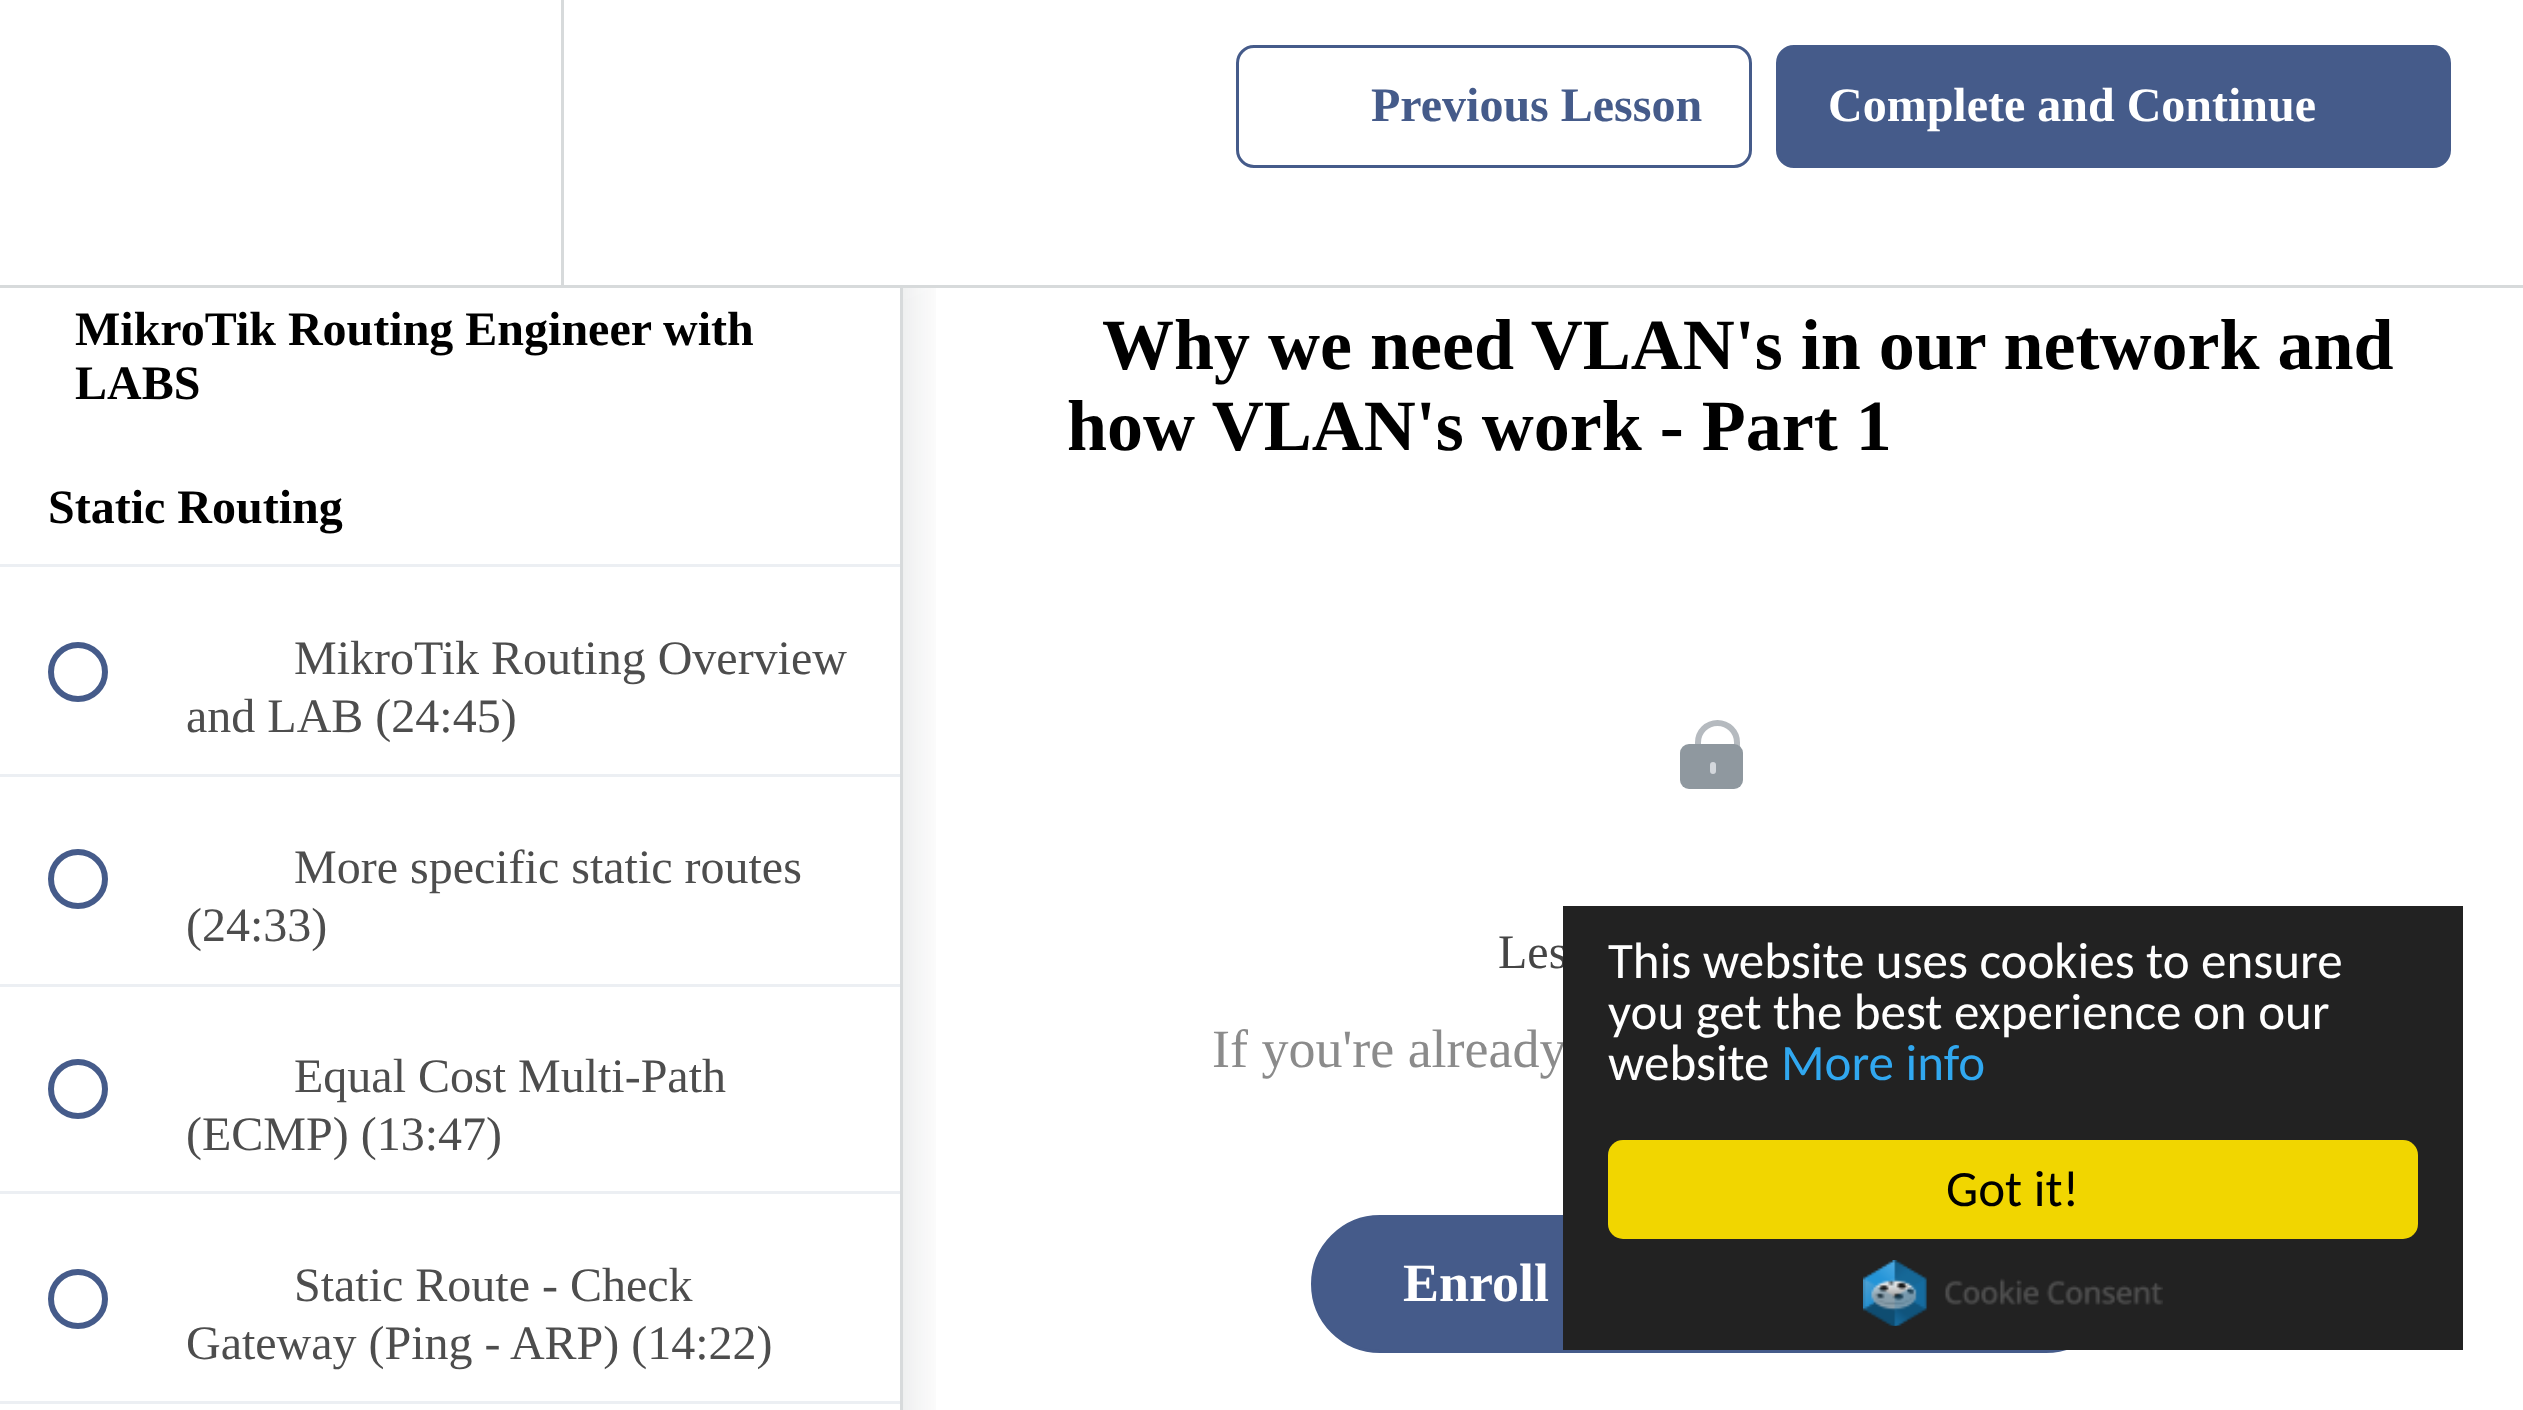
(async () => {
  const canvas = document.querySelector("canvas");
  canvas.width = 2523;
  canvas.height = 1410;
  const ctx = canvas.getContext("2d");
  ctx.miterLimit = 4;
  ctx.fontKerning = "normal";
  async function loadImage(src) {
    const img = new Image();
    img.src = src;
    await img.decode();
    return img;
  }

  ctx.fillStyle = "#ffffff";
  ctx.fillRect(0, 0, 2523, 1410);
  ctx.save();
  ctx.beginPath();
  ctx.rect(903, 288, 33, 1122);
  ctx.clip();
  ctx.fillStyle = "rgba(32, 39, 45, 0.15)";
  ctx.filter = "blur(30px)";
  ctx.beginPath();
  ctx.rect(0, 246, 903, 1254);
  ctx.fill();
  ctx.filter = "none";
  ctx.restore();
  for (const [x, y, w, h, color] of [
    [0, 203, 944, 82, "#ffffff"],
    [0, 285, 2523, 3, "#d7dadb"],
    [561, 0, 3, 285, "#d7dadb"],
  ]) {
    ctx.fillStyle = color;
    ctx.fillRect(x, y, w, h);
  }
  ctx.beginPath();
  ctx.roundRect(1237.5, 46.5, 513, 120, 16.5);
  ctx.strokeStyle = "#455b8a";
  ctx.lineWidth = 3;
  ctx.stroke();
  ctx.fillStyle = "#455b8a";
  ctx.beginPath();
  ctx.roundRect(1777.5, 46.5, 672, 120, 16.5);
  ctx.fill();
  ctx.stroke();
  for (const [x, y, w, h, color] of [
    [900, 288, 3, 1122, "#d7dadb"],
    [0, 564, 900, 3, "#eceff3"],
    [0, 774, 900, 3, "#eceff3"],
  ]) {
    ctx.fillStyle = color;
    ctx.fillRect(x, y, w, h);
  }
  ctx.beginPath();
  ctx.arc(78, 672, 27, 0, Math.PI * 2);
  ctx.lineWidth = 6;
  ctx.stroke();
  ctx.fillRect(0, 984, 900, 3);
  ctx.beginPath();
  ctx.arc(78, 879, 27, 0, Math.PI * 2);
  ctx.stroke();
  ctx.fillRect(0, 1191, 900, 3);
  ctx.beginPath();
  ctx.arc(78, 1089, 27, 0, Math.PI * 2);
  ctx.stroke();
  ctx.fillRect(0, 1401, 900, 3);
  ctx.beginPath();
  ctx.arc(78, 1299, 27, 0, Math.PI * 2);
  ctx.stroke();
  ctx.beginPath();
  ctx.roundRect(1698, 723, 39, 60, 19.5);
  ctx.strokeStyle = "#b5babf";
  ctx.stroke();
  ctx.fillStyle = "#8f989f";
  ctx.beginPath();
  ctx.roundRect(1680, 744, 63, 45, 9);
  ctx.fill();
  ctx.fillStyle = "#d3d7dc";
  ctx.beginPath();
  ctx.roundRect(1710, 762, 6, 12, 3);
  ctx.fill();
  ctx.fillStyle = "#455b8a";
  ctx.beginPath();
  ctx.roundRect(1312.5, 1216.5, 801, 135, 67.5);
  ctx.fill();
  ctx.strokeStyle = "#455b8a";
  ctx.lineWidth = 3;
  ctx.stroke();
  ctx.font = "bold 48px Liberation Serif";
  ctx.fillText("Previous Lesson", 1371, 121);
  ctx.fillStyle = "#ffffff";
  ctx.fillText("Complete and Continue", 1828, 121);
  ctx.fillStyle = "#000000";
  for (const [text, x, y] of [
    ["MikroTik Routing Engineer with", 75, 345],
    ["LABS", 75, 399],
    ["Static Routing", 48, 523],
  ]) {
    ctx.fillText(text, x, y);
  }
  ctx.font = "48px Liberation Serif";
  ctx.fillStyle = "#4d4d4d";
  for (const [text, x, y] of [
    ["MikroTik Routing Overview", 294, 674],
    ["and LAB (24:45)", 186, 732],
    ["More specific static routes", 294, 883],
    ["(24:33)", 186, 941],
    ["Equal Cost Multi-Path", 294, 1092],
    ["(ECMP) (13:47)", 186, 1150],
    ["Static Route - Check", 294, 1301],
    ["Gateway (Ping - ARP) (14:22)", 186, 1359],
  ]) {
    ctx.fillText(text, x, y);
  }
  ctx.font = "bold 72px Liberation Serif";
  ctx.fillStyle = "#000000";
  ctx.fillText("Why we need VLAN's in our network and", 1102, 369);
  ctx.fillText("how VLAN's work - Part 1", 1067, 450);
  ctx.font = "48px Liberation Serif";
  ctx.fillStyle = "#454545";
  ctx.fillText("Les", 1498, 968);
  ctx.font = "54px Liberation Serif";
  ctx.fillStyle = "#8b8b8b";
  ctx.fillText("If you're already", 1212, 1067);
  ctx.font = "bold 54px Liberation Serif";
  ctx.fillStyle = "#ffffff";
  ctx.fillText("Enroll", 1403, 1301);
  ctx.fillStyle = "#222222";
  ctx.fillRect(1563, 906, 900, 444);
  ctx.font = "51px Carlito";
  ctx.fillStyle = "#ffffff";
  for (const [text, x, y] of [
    ["This website uses cookies to ensure", 1608, 978],
    ["you get the best experience on our", 1608, 1029],
    ["website", 1608, 1080],
  ]) {
    ctx.fillText(text, x, y);
  }
  ctx.fillStyle = "#31a8f0";
  ctx.fillText("More info", 1781, 1080);
  ctx.fillStyle = "#f1d600";
  ctx.beginPath();
  ctx.roundRect(1608, 1140, 810, 99, 15);
  ctx.fill();
  ctx.fillStyle = "#000000";
  ctx.fillText("Got it!", 1946, 1206);
  ctx.drawImage(await loadImage("img/1.png"), 1863, 1260, 300, 66);
})();
